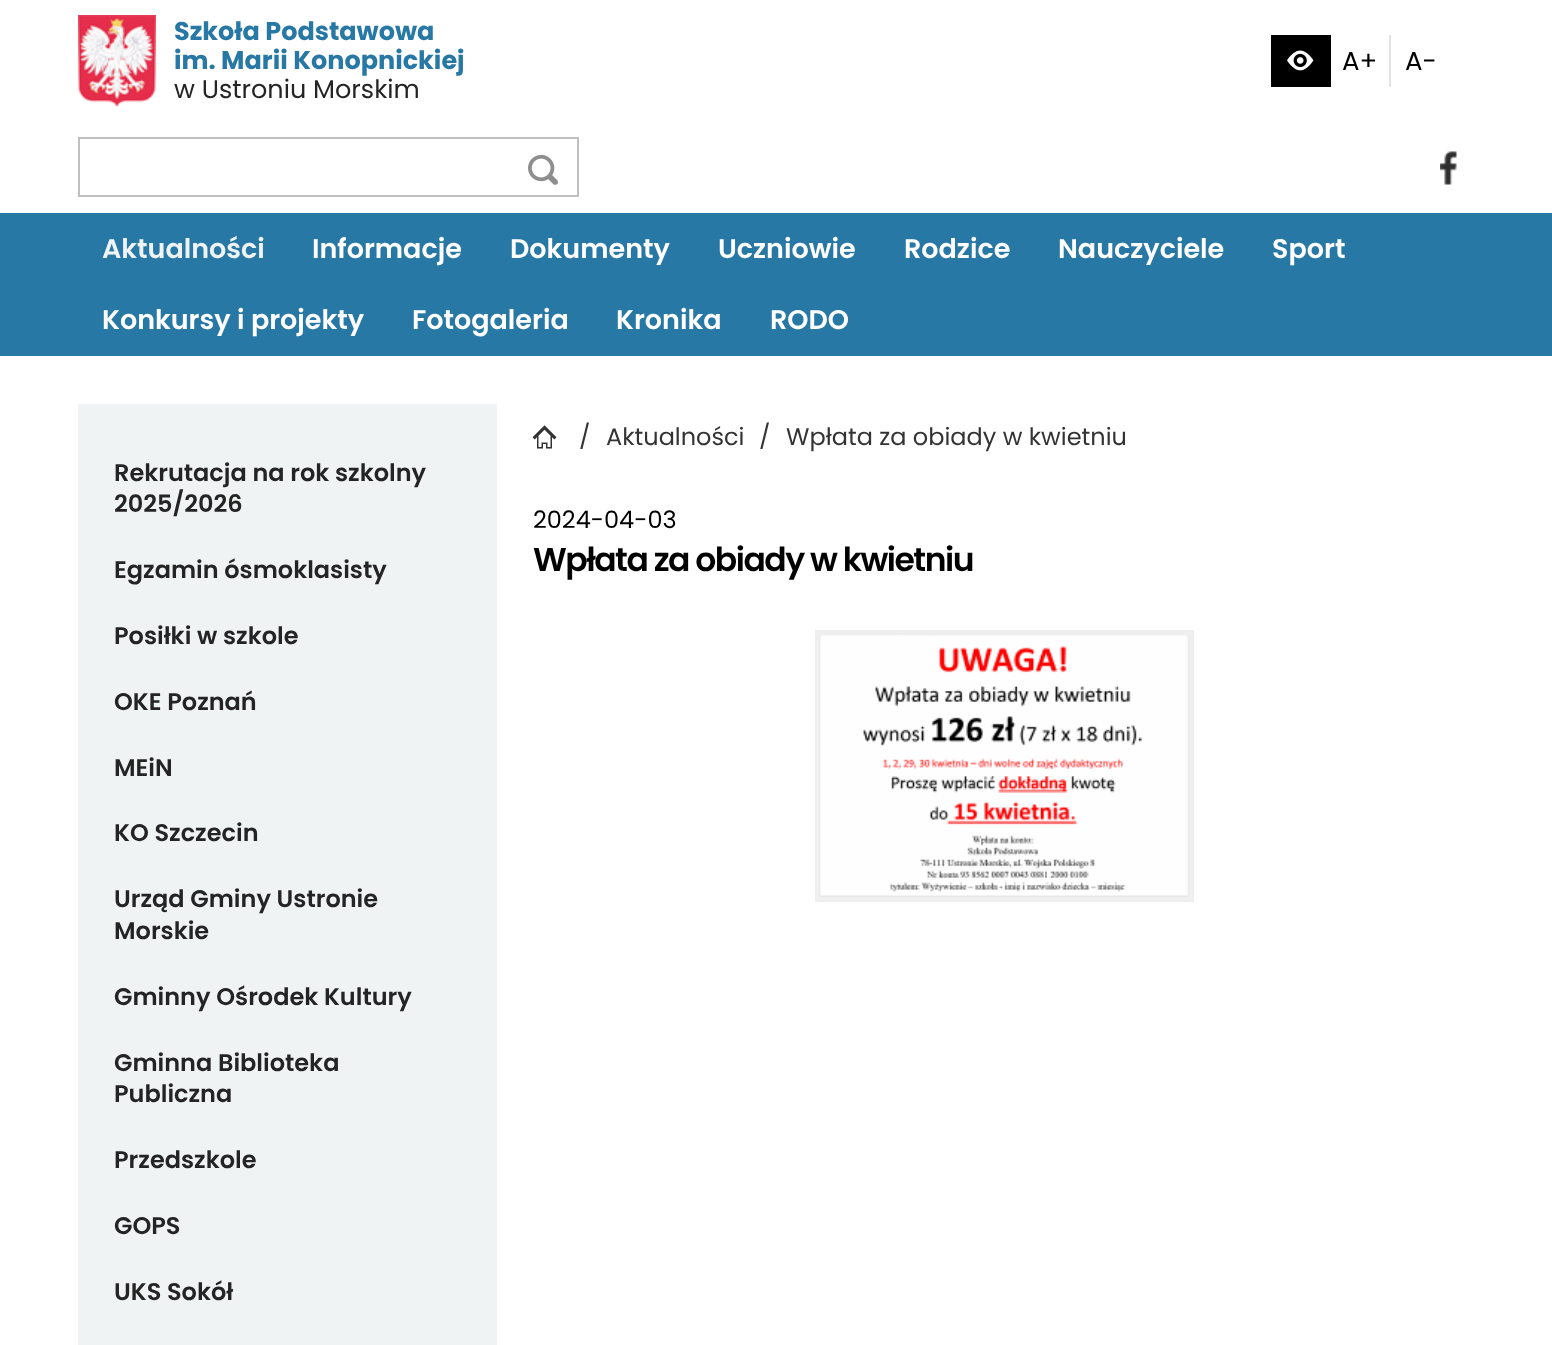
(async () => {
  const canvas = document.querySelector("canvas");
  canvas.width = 1552;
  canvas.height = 1345;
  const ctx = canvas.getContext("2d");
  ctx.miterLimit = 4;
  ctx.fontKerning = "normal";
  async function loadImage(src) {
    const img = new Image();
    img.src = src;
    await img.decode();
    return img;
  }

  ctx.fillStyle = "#ffffff";
  ctx.fillRect(0, 0, 1552, 1345);
  ctx.drawImage(await loadImage("img/1.png"), 78, 15, 78, 92);
  ctx.fillStyle = "#000000";
  ctx.fillRect(1271, 35, 60, 52);
  ctx.drawImage(await loadImage("img/2.png"), 1287, 50, 27, 21);
  ctx.fillStyle = "#e2e2e2";
  ctx.fillRect(1389, 35, 2, 52);
  ctx.strokeStyle = "#bfbfbf";
  ctx.lineWidth = 2;
  ctx.strokeRect(79, 138, 499, 58);
  ctx.drawImage(await loadImage("img/3.png"), 528, 154, 30, 31);
  ctx.drawImage(await loadImage("img/4.png"), 1440, 151, 17, 34);
  ctx.fillStyle = "#2878a6";
  ctx.fillRect(0, 213, 1552, 143);
  ctx.fillStyle = "#f0f3f4";
  ctx.fillRect(78, 404, 419, 941);
  ctx.drawImage(await loadImage("img/5.png"), 532, 425, 25, 24);
  ctx.strokeStyle = "#eeeeee";
  ctx.strokeRect(816, 631, 377, 270);
  ctx.drawImage(await loadImage("img/6.png"), 817, 632, 375, 268);
  ctx.font = "bold 25.5px Poppins";
  ctx.fillStyle = "#2878a6";
  ctx.fillText("Szkoła Podstawowa", 174, 40);
  ctx.fillText("im. Marii Konopnickiej", 174, 69);
  ctx.font = "25.5px Poppins";
  ctx.fillStyle = "#242424";
  ctx.fillText("w Ustroniu Morskim", 174, 98);
  ctx.font = "26px Poppins";
  ctx.fillStyle = "#000000";
  ctx.fillText("A+", 1342, 70);
  ctx.fillText("A-", 1405, 70);
  ctx.font = "600 27px Poppins";
  ctx.fillStyle = "#f0f3f4";
  ctx.fillText("Aktualności", 102, 258);
  ctx.fillStyle = "#ffffff";
  for (const [text, x, y] of [
    ["Informacje", 312, 258],
    ["Dokumenty", 510, 258],
    ["Uczniowie", 718, 258],
    ["Rodzice", 904, 258],
    ["Nauczyciele", 1058, 258],
    ["Sport", 1272, 258],
    ["Konkursy i projekty", 102, 329],
    ["Fotogaleria", 412, 329],
    ["Kronika", 616, 329],
    ["RODO", 770, 329],
  ]) {
    ctx.fillText(text, x, y);
  }
  ctx.font = "600 24px Poppins";
  ctx.fillStyle = "#242424";
  for (const [text, x, y] of [
    ["Rekrutacja na rok szkolny", 114, 481],
    ["2025/2026", 114, 512],
    ["Egzamin ósmoklasisty", 114, 578],
    ["Posiłki w szkole", 114, 644],
    ["OKE Poznań", 114, 710],
    ["MEiN", 114, 776],
    ["KO Szczecin", 114, 841],
    ["Urząd Gminy Ustronie", 114, 907],
    ["Morskie", 114, 939],
    ["Gminny Ośrodek Kultury", 114, 1005],
    ["Gminna Biblioteka", 114, 1071],
    ["Publiczna", 114, 1102],
    ["Przedszkole", 114, 1168],
    ["GOPS", 114, 1234],
    ["UKS Sokół", 114, 1300],
  ]) {
    ctx.fillText(text, x, y);
  }
  ctx.font = "24px Poppins";
  ctx.fillStyle = "#333333";
  for (const [text, x, y] of [
    ["/", 579, 445],
    ["Aktualności", 606, 445],
    ["/", 759, 445],
    ["Wpłata za obiady w kwietniu", 786, 445],
  ]) {
    ctx.fillText(text, x, y);
  }
  ctx.fillStyle = "#000000";
  ctx.fillText("2024-04-03", 533, 528);
  ctx.letterSpacing = "-1.5px";
  ctx.font = "600 33px Poppins";
  ctx.fillText("Wpłata za obiady w kwietniu", 533, 571);
})();
